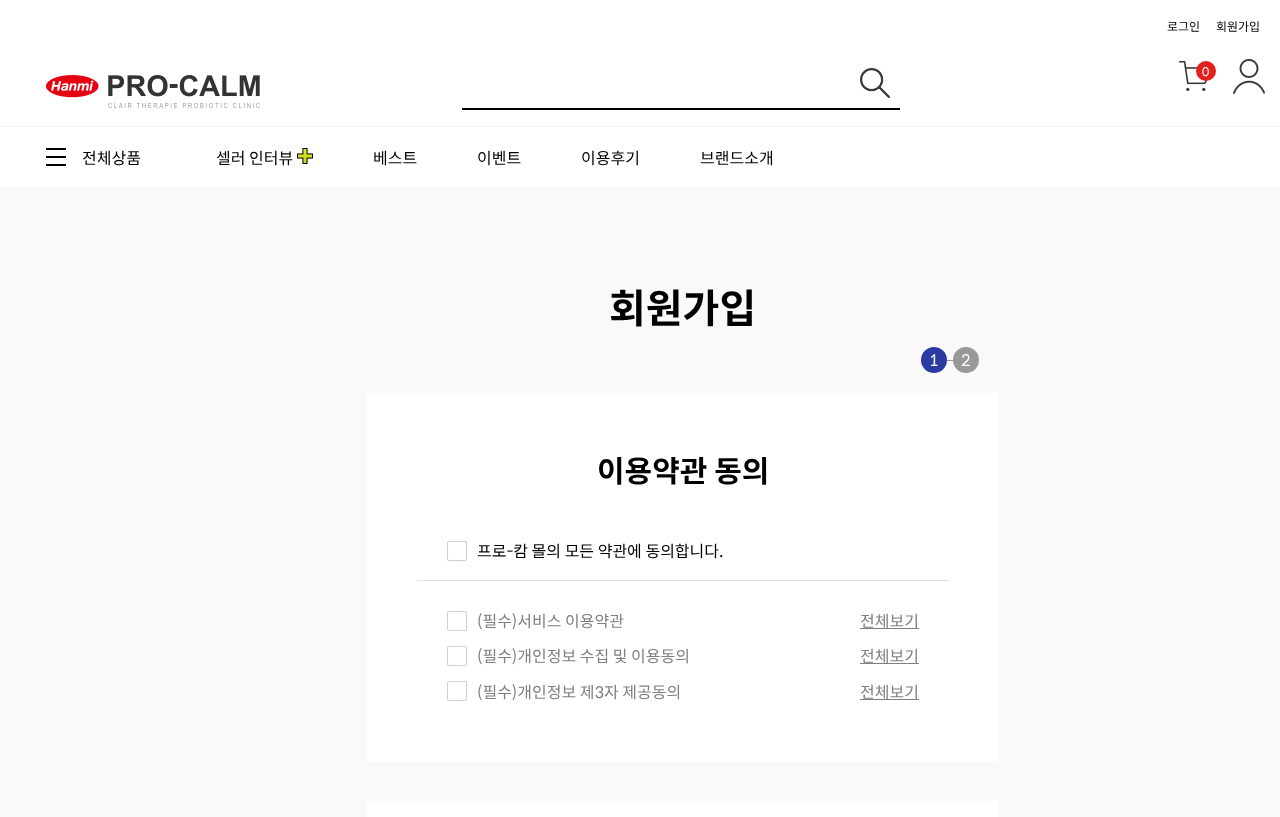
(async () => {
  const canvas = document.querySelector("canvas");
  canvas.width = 1280;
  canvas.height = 817;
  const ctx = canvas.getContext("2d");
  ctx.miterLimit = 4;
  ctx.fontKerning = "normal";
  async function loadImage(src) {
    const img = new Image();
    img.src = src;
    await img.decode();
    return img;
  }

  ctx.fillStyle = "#ffffff";
  ctx.fillRect(0, 0, 1280, 817);
  ctx.fillStyle = "#f0f0f0";
  ctx.fillRect(0, 126, 1280, 1);
  ctx.drawImage(await loadImage("img/1.png"), 46, 75, 214, 34);
  ctx.fillStyle = "#000000";
  ctx.fillRect(462, 108, 438, 2);
  ctx.drawImage(await loadImage("img/2.png"), 860, 68, 30, 30);
  ctx.drawImage(await loadImage("img/3.png"), 1179, 61, 28, 30);
  ctx.fillStyle = "#e2211c";
  ctx.beginPath();
  ctx.arc(1206, 71, 10, 0, Math.PI * 2);
  ctx.fill();
  ctx.drawImage(await loadImage("img/4.png"), 1233, 59, 32, 35);
  ctx.drawImage(await loadImage("img/5.png"), 46, 148, 20, 18);
  ctx.drawImage(await loadImage("img/6.png"), 297, 148, 16, 16);
  ctx.fillStyle = "#f9f9f9";
  ctx.fillRect(0, 187, 1280, 630);
  ctx.fillStyle = "#2b3aa1";
  ctx.beginPath();
  ctx.arc(934, 360, 13, 0, Math.PI * 2);
  ctx.fill();
  ctx.fillStyle = "#999999";
  ctx.fillRect(947, 360, 6, 1);
  ctx.beginPath();
  ctx.arc(966, 360, 13, 0, Math.PI * 2);
  ctx.fill();
  ctx.fillStyle = "#ffffff";
  ctx.fillRect(367, 393, 632, 368);
  ctx.drawImage(await loadImage("img/7.png"), 447, 541, 20, 20);
  ctx.fillStyle = "#e1e1e1";
  ctx.fillRect(417, 580, 532, 1);
  ctx.drawImage(await loadImage("img/7.png"), 447, 611, 20, 20);
  ctx.fillStyle = "#7f7f7f";
  ctx.fillRect(860, 628, 59, 1);
  ctx.drawImage(await loadImage("img/7.png"), 447, 646, 20, 20);
  ctx.fillRect(860, 663, 59, 1);
  ctx.drawImage(await loadImage("img/7.png"), 447, 681, 20, 20);
  ctx.fillRect(860, 699, 59, 1);
  ctx.fillStyle = "#ffffff";
  ctx.fillRect(367, 801, 632, 16);
  ctx.font = "12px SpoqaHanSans";
  ctx.fillStyle = "#000000";
  ctx.fillText("로그인", 1167, 31);
  ctx.fillText("회원가입", 1216, 31);
  ctx.fillStyle = "#ffffff";
  ctx.fillText("0", 1202, 76);
  ctx.font = "16px SpoqaHanSans";
  ctx.fillStyle = "#000000";
  for (const [text, x, y] of [
    ["전체상품", 82, 164],
    ["셀러 인터뷰", 216, 164],
    ["베스트", 373, 164],
    ["이벤트", 477, 164],
    ["이용후기", 581, 164],
    ["브랜드소개", 700, 164],
  ]) {
    ctx.fillText(text, x, y);
  }
  ctx.font = "bold 40px SpoqaHanSans";
  ctx.fillText("회원가입", 609, 323);
  ctx.font = "16px SpoqaHanSans";
  ctx.fillStyle = "#ffffff";
  ctx.fillText("1", 929, 366);
  ctx.fillText("2", 961, 366);
  ctx.font = "bold 30px SpoqaHanSans";
  ctx.fillStyle = "#000000";
  ctx.fillText("이용약관 동의", 597, 482);
  ctx.font = "16px SpoqaHanSans";
  ctx.fillText("프로-캄 몰의 모든 약관에 동의합니다.", 477, 557);
  ctx.fillStyle = "#7f7f7f";
  for (const [text, x, y] of [
    ["(필수)서비스 이용약관", 477, 627],
    ["전체보기", 860, 627],
    ["(필수)개인정보 수집 및 이용동의", 477, 662],
    ["전체보기", 860, 662],
    ["(필수)개인정보 제3자 제공동의", 477, 698],
    ["전체보기", 860, 698],
  ]) {
    ctx.fillText(text, x, y);
  }
})();
